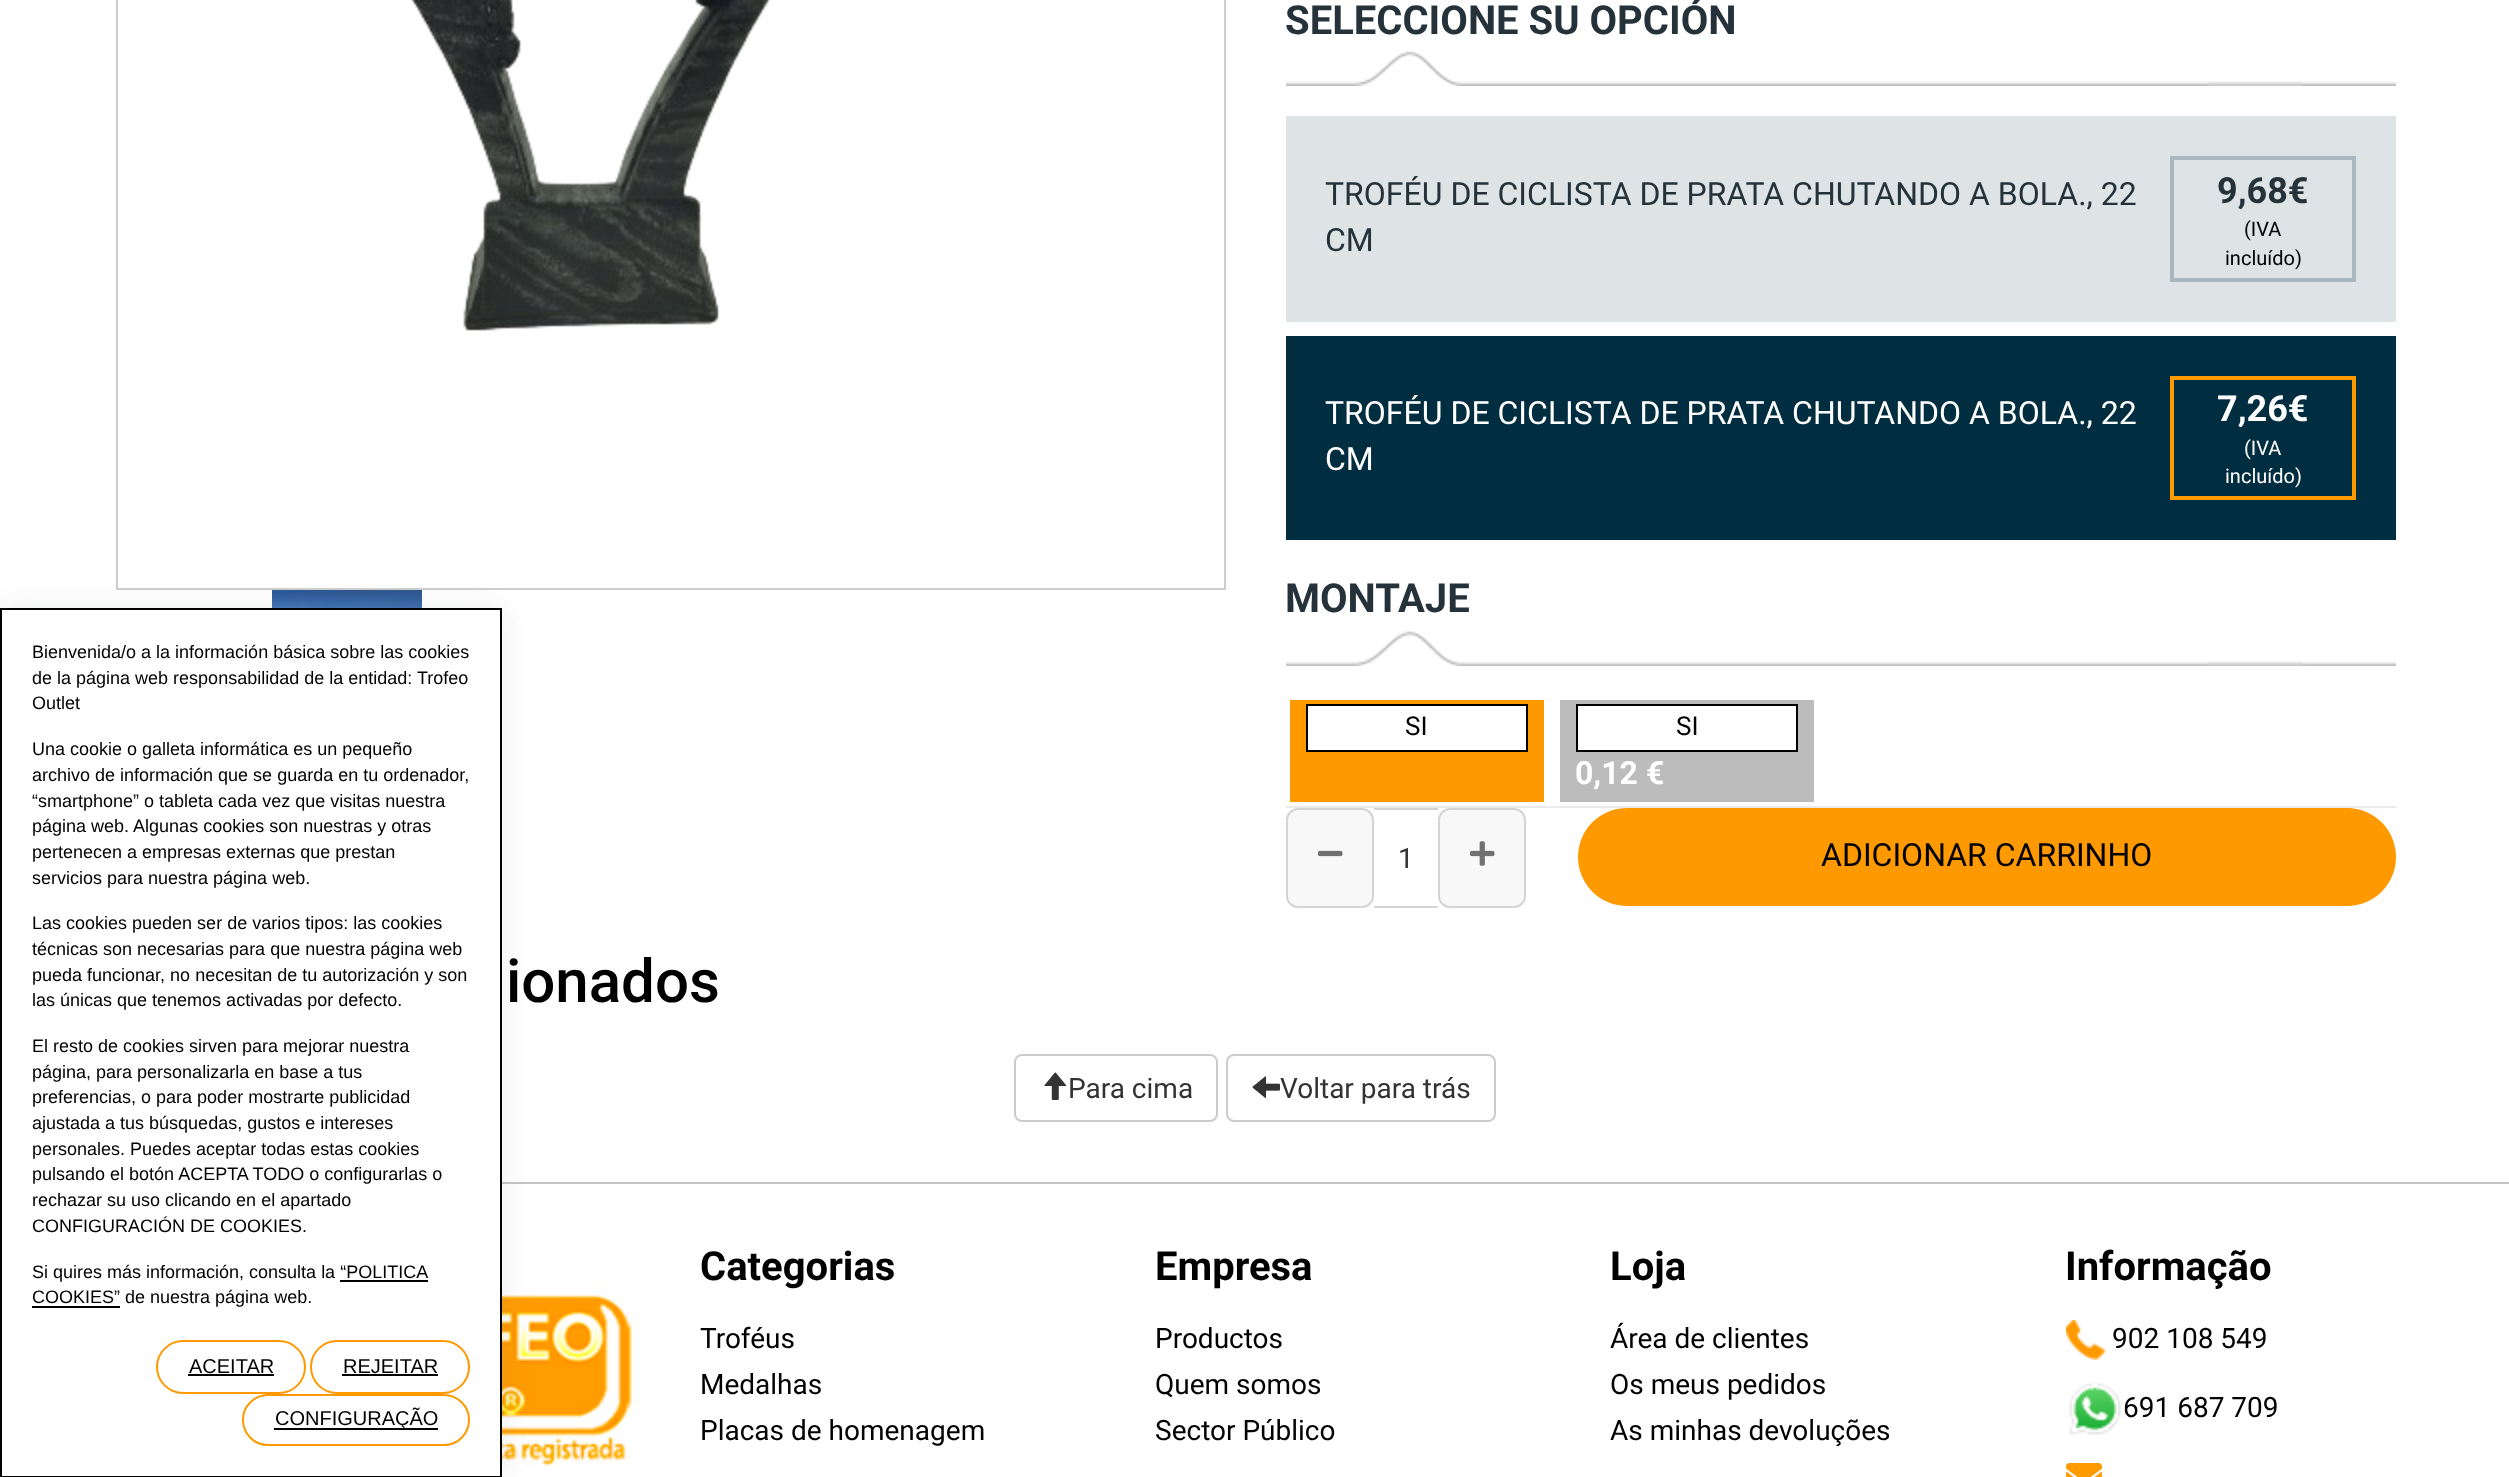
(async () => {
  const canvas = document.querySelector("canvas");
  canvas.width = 2509;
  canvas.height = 1477;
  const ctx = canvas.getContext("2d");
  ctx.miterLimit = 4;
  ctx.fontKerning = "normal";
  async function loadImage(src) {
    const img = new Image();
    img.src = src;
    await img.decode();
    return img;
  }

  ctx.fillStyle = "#ffffff";
  ctx.fillRect(0, 0, 2509, 1477);
  ctx.strokeStyle = "#cecece";
  ctx.lineWidth = 2;
  ctx.strokeRect(117, -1, 1108, 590);
  ctx.drawImage(await loadImage("img/2.png"), 272, 590, 150, 18);
  ctx.fillStyle = "#c4c4c4";
  ctx.fillRect(502, 1182, 2007, 2);
  ctx.drawImage(await loadImage("img/8.png"), 502, 1254, 131, 212);
  ctx.fillStyle = "rgba(130, 132, 134, 0.15)";
  ctx.filter = "blur(15px)";
  ctx.beginPath();
  ctx.rect(0, 608, 502, 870);
  ctx.fill();
  ctx.filter = "none";
  ctx.fillStyle = "#ffffff";
  ctx.beginPath();
  ctx.rect(1, 609, 500, 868);
  ctx.fill();
  ctx.strokeStyle = "#000000";
  ctx.stroke();
  ctx.fillStyle = "#000000";
  ctx.fillRect(340, 1280, 88, 2);
  ctx.fillRect(32, 1306, 88, 2);
  ctx.beginPath();
  ctx.roundRect(157, 1341, 148, 52, 26);
  ctx.strokeStyle = "#ff9900";
  ctx.stroke();
  ctx.fillRect(188, 1374, 86, 2);
  ctx.beginPath();
  ctx.roundRect(311, 1341, 158, 52, 26);
  ctx.stroke();
  ctx.fillRect(342, 1374, 96, 2);
  ctx.beginPath();
  ctx.roundRect(243, 1395, 226, 50, 25);
  ctx.stroke();
  ctx.fillRect(274, 1428, 164, 2);
  ctx.drawImage(await loadImage("img/1.png"), 411, 0, 360, 331);
  ctx.drawImage(await loadImage("img/3.png"), 1286, 51, 1110, 35);
  ctx.fillStyle = "#dee4e6";
  ctx.fillRect(1286, 116, 1110, 206);
  ctx.strokeStyle = "#a9b8be";
  ctx.lineWidth = 4;
  ctx.strokeRect(2172, 158, 182, 122);
  ctx.fillStyle = "#002d3f";
  ctx.fillRect(1286, 336, 1110, 204);
  ctx.strokeStyle = "#ff9b00";
  ctx.strokeRect(2172, 378, 182, 120);
  ctx.drawImage(await loadImage("img/3.png"), 1286, 631, 1110, 35);
  ctx.fillStyle = "#ff9900";
  ctx.fillRect(1290, 700, 254, 102);
  ctx.fillStyle = "#ffffff";
  ctx.beginPath();
  ctx.rect(1307, 705, 220, 46);
  ctx.fill();
  ctx.strokeStyle = "#000000";
  ctx.lineWidth = 2;
  ctx.stroke();
  ctx.fillStyle = "#bcbcbc";
  ctx.fillRect(1560, 700, 254, 102);
  ctx.fillStyle = "#ffffff";
  ctx.beginPath();
  ctx.rect(1577, 705, 220, 46);
  ctx.fill();
  ctx.stroke();
  ctx.fillStyle = "#eaeaea";
  ctx.fillRect(1286, 806, 1110, 2);
  ctx.fillStyle = "#f8f8f8";
  ctx.beginPath();
  ctx.roundRect(1287, 809, 86, 98, 11);
  ctx.fill();
  ctx.strokeStyle = "#d4d4d4";
  ctx.stroke();
  ctx.drawImage(await loadImage("img/4.png"), 1318, 850, 25, 7);
  ctx.fillStyle = "#d4d4d4";
  ctx.fillRect(1374, 808, 64, 2);
  ctx.fillRect(1374, 906, 64, 2);
  ctx.fillStyle = "#f8f8f8";
  ctx.beginPath();
  ctx.roundRect(1439, 809, 86, 98, 11);
  ctx.fill();
  ctx.stroke();
  ctx.drawImage(await loadImage("img/5.png"), 1470, 841, 25, 25);
  ctx.fillStyle = "#ff9900";
  ctx.beginPath();
  ctx.roundRect(1578, 808, 818, 98, 49);
  ctx.fill();
  ctx.beginPath();
  ctx.roundRect(1015, 1055, 202, 66, 7);
  ctx.strokeStyle = "#cccccc";
  ctx.stroke();
  ctx.drawImage(await loadImage("img/6.png"), 1044, 1072, 23, 28);
  ctx.beginPath();
  ctx.roundRect(1227, 1055, 268, 66, 7);
  ctx.stroke();
  ctx.drawImage(await loadImage("img/7.png"), 1252, 1076, 28, 23);
  ctx.drawImage(await loadImage("img/9.png"), 2066, 1320, 40, 40);
  ctx.drawImage(await loadImage("img/10.png"), 2068, 1382, 54, 54);
  ctx.drawImage(await loadImage("img/11.png"), 2066, 1463, 36, 14);
  ctx.font = "18px Liberation Sans";
  ctx.fillStyle = "#000000";
  for (const [text, x, y] of [
    ["Bienvenida/o a la información básica sobre las cookies", 32, 658],
    ["de la página web responsabilidad de la entidad: Trofeo", 32, 684],
    ["Outlet", 32, 709],
    ["Una cookie o galleta informática es un pequeño", 32, 755],
    ["archivo de información que se guarda en tu ordenador,", 32, 781],
    ["“smartphone” o tableta cada vez que visitas nuestra", 32, 807],
    ["página web. Algunas cookies son nuestras y otras", 32, 832],
    ["pertenecen a empresas externas que prestan", 32, 858],
    ["servicios para nuestra página web.", 32, 884],
    ["Las cookies pueden ser de varios tipos: las cookies", 32, 929],
    ["técnicas son necesarias para que nuestra página web", 32, 955],
    ["pueda funcionar, no necesitan de tu autorización y son", 32, 981],
    ["las únicas que tenemos activadas por defecto.", 32, 1006],
    ["El resto de cookies sirven para mejorar nuestra", 32, 1052],
    ["página, para personalizarla en base a tus", 32, 1078],
    ["preferencias, o para poder mostrarte publicidad", 32, 1103],
    ["ajustada a tus búsquedas, gustos e intereses", 32, 1129],
    ["personales. Puedes aceptar todas estas cookies", 32, 1155],
    ["pulsando el botón ACEPTA TODO o configurarlas o", 32, 1180],
    ["rechazar su uso clicando en el apartado", 32, 1206],
    ["CONFIGURACIÓN DE COOKIES.", 32, 1232],
    ["Si quires más información, consulta la “POLITICA", 32, 1278],
    ["COOKIES” de nuestra página web.", 32, 1303],
  ]) {
    ctx.fillText(text, x, y);
  }
  ctx.font = "20px Liberation Sans";
  for (const [text, x, y] of [
    ["ACEITAR", 189, 1373],
    ["REJEITAR", 343, 1373],
    ["CONFIGURAÇÃO", 275, 1425],
  ]) {
    ctx.fillText(text, x, y);
  }
  ctx.font = "bold 40px Roboto";
  ctx.fillStyle = "#25323a";
  ctx.fillText("SELECCIONE SU OPCIÓN", 1285, 34);
  ctx.font = "32px Roboto";
  ctx.fillText("TROFÉU DE CICLISTA DE PRATA CHUTANDO A BOLA., 22", 1325, 205);
  ctx.fillText("CM", 1325, 251);
  ctx.font = "bold 36px Roboto";
  ctx.fillText("9,68€", 2217, 203);
  ctx.font = "20px Roboto";
  ctx.fillStyle = "#000000";
  ctx.fillText("(IVA", 2244, 236);
  ctx.fillText("incluído)", 2225, 265);
  ctx.font = "32px Roboto";
  ctx.fillStyle = "#ffffff";
  ctx.fillText("TROFÉU DE CICLISTA DE PRATA CHUTANDO A BOLA., 22", 1325, 424);
  ctx.fillText("CM", 1325, 470);
  ctx.font = "bold 36px Roboto";
  ctx.fillText("7,26€", 2217, 421);
  ctx.font = "20px Roboto";
  ctx.fillText("(IVA", 2244, 455);
  ctx.fillText("incluído)", 2225, 483);
  ctx.font = "bold 40px Roboto";
  ctx.fillStyle = "#25323a";
  ctx.fillText("MONTAJE", 1285, 612);
  ctx.font = "26px Roboto";
  ctx.fillStyle = "#000000";
  ctx.fillText("SI", 1405, 735);
  ctx.fillText("SI", 1676, 735);
  ctx.font = "bold 32px Roboto";
  ctx.fillStyle = "#ffffff";
  ctx.fillText("0,12 €", 1575, 784);
  ctx.font = "28px Roboto";
  ctx.fillStyle = "#333333";
  ctx.fillText("1", 1398, 868);
  ctx.font = "32px Roboto";
  ctx.fillStyle = "#000000";
  ctx.fillText("ADICIONAR CARRINHO", 1821, 866);
  ctx.font = "500 60px Roboto";
  ctx.fillText("ionados", 506, 1002);
  ctx.font = "28px Roboto";
  ctx.fillStyle = "#333333";
  ctx.fillText("Para cima", 1068, 1098);
  ctx.fillText("Voltar para trás", 1280, 1098);
  ctx.font = "bold 40px Roboto";
  ctx.fillStyle = "#000000";
  ctx.fillText("Categorias", 700, 1280);
  ctx.font = "28px Roboto";
  for (const [text, x, y] of [
    ["Troféus", 700, 1348],
    ["Medalhas", 700, 1394],
    ["Placas de homenagem", 700, 1440],
  ]) {
    ctx.fillText(text, x, y);
  }
  ctx.font = "bold 40px Roboto";
  ctx.fillText("Empresa", 1155, 1280);
  ctx.font = "28px Roboto";
  for (const [text, x, y] of [
    ["Productos", 1155, 1348],
    ["Quem somos", 1155, 1394],
    ["Sector Público", 1155, 1440],
  ]) {
    ctx.fillText(text, x, y);
  }
  ctx.font = "bold 40px Roboto";
  ctx.fillText("Loja", 1610, 1280);
  ctx.font = "28px Roboto";
  for (const [text, x, y] of [
    ["Área de clientes", 1610, 1348],
    ["Os meus pedidos", 1610, 1394],
    ["As minhas devoluções", 1610, 1440],
  ]) {
    ctx.fillText(text, x, y);
  }
  ctx.font = "bold 40px Roboto";
  ctx.fillText("Informação", 2065, 1280);
  ctx.font = "28px Roboto";
  ctx.fillText("902 108 549", 2112, 1348);
  ctx.fillText("691 687 709", 2123, 1417);
})();
